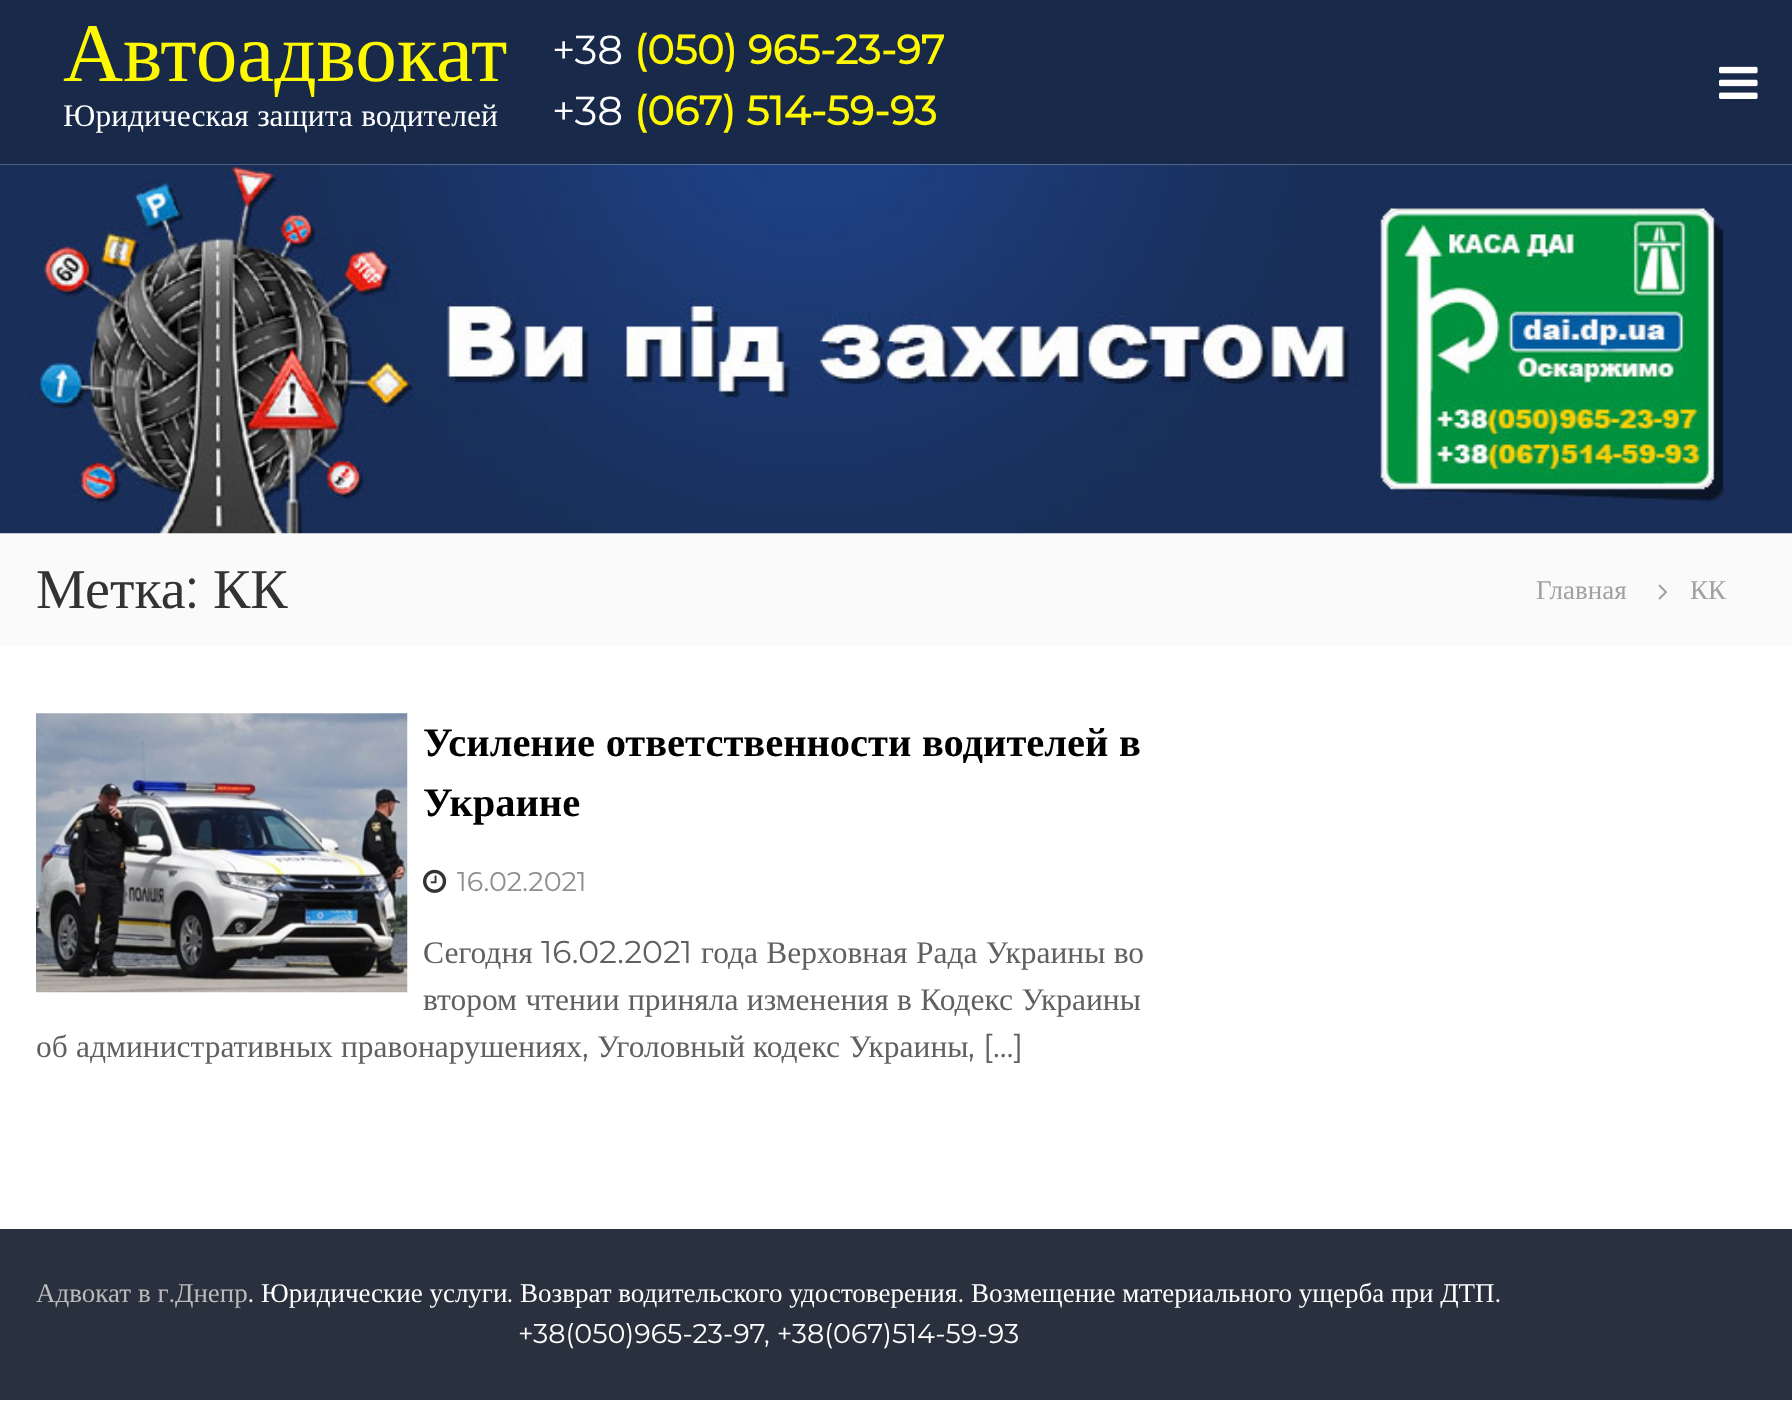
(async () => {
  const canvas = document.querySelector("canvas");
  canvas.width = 1792;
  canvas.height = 1428;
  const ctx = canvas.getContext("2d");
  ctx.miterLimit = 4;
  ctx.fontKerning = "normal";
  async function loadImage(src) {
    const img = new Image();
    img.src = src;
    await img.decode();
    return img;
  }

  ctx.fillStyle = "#ffffff";
  ctx.fillRect(0, 0, 1792, 1428);
  ctx.fillStyle = "#19294a";
  ctx.fillRect(0, 0, 1792, 164);
  ctx.drawImage(await loadImage("img/1.png"), 1719, 66, 39, 33);
  ctx.fillStyle = "#fafafa";
  ctx.fillRect(0, 533, 1792, 113);
  ctx.drawImage(await loadImage("img/2.png"), 0, 164, 1792, 370);
  ctx.drawImage(await loadImage("img/3.png"), 1658, 584, 10, 16);
  ctx.drawImage(await loadImage("img/4.png"), 36, 713, 372, 280);
  ctx.drawImage(await loadImage("img/5.png"), 423, 869, 24, 24);
  ctx.fillStyle = "#28313d";
  ctx.fillRect(0, 1229, 1792, 171);
  ctx.font = "83.25px Liberation Serif";
  ctx.fillStyle = "#fff900";
  ctx.fillText("Автоадвокат", 63, 81);
  ctx.wordSpacing = "0.5px";
  ctx.font = "31.5px Liberation Serif";
  ctx.fillStyle = "#ffffff";
  ctx.fillText("Юридическая защита водителей", 63, 126);
  ctx.wordSpacing = "0px";
  ctx.font = "40.5px Montserrat";
  ctx.fillText("+38", 552, 64);
  ctx.font = "bold 40.5px Montserrat";
  ctx.fillStyle = "#fff900";
  ctx.fillText("(050) 965-23-97", 634, 64);
  ctx.font = "40.5px Montserrat";
  ctx.fillStyle = "#ffffff";
  ctx.fillText("+38", 552, 125);
  ctx.font = "bold 40.5px Montserrat";
  ctx.fillStyle = "#fff900";
  ctx.fillText("(067) 514-59-93", 634, 125);
  ctx.font = "56px Liberation Serif";
  ctx.fillStyle = "#333333";
  ctx.fillText("Метка", 36, 608);
  ctx.font = "56px Montserrat";
  ctx.fillText(":", 186, 608);
  ctx.font = "56px Liberation Serif";
  ctx.fillText("КК", 213, 608);
  ctx.font = "27px Liberation Serif";
  ctx.fillStyle = "#a1a1a1";
  ctx.fillText("Главная", 1536, 599);
  ctx.fillText("КК", 1690, 599);
  ctx.wordSpacing = "0.5px";
  ctx.font = "bold 40.5px Liberation Serif";
  ctx.fillStyle = "#000000";
  ctx.fillText("Усиление ответственности водителей в", 423, 756);
  ctx.wordSpacing = "0px";
  ctx.fillText("Украине", 423, 816);
  ctx.font = "27px Montserrat";
  ctx.fillStyle = "#8e8e8e";
  ctx.fillText("16.02.2021", 457, 891);
  ctx.font = "31.5px Liberation Serif";
  ctx.fillStyle = "#606060";
  ctx.fillText("Сегодня", 423, 963);
  ctx.font = "31.5px Montserrat";
  ctx.fillText("16.02.2021", 541, 963);
  ctx.wordSpacing = "0.5px";
  ctx.font = "31.5px Liberation Serif";
  ctx.fillText("года Верховная Рада Украины во", 701, 963);
  ctx.fillText("втором чтении приняла изменения в Кодекс Украины", 423, 1010);
  ctx.wordSpacing = "0px";
  for (const [text, x, y] of [
    ["об", 36, 1057],
    ["административных", 76, 1057],
    ["правонарушениях", 341, 1057],
  ]) {
    ctx.fillText(text, x, y);
  }
  ctx.font = "31.5px Montserrat";
  ctx.fillText(",", 582, 1057);
  ctx.font = "31.5px Liberation Serif";
  for (const [text, x, y] of [
    ["Уголовный", 597, 1057],
    ["кодекс", 753, 1057],
    ["Украины", 849, 1057],
  ]) {
    ctx.fillText(text, x, y);
  }
  ctx.font = "31.5px Montserrat";
  ctx.fillText(", […]", 968, 1057);
  ctx.font = "27px Liberation Serif";
  ctx.fillStyle = "#bcbaba";
  ctx.fillText("Адвокат", 36, 1302);
  ctx.fillText("в г", 138, 1302);
  ctx.font = "27px Montserrat";
  ctx.fillText(".", 169, 1302);
  ctx.font = "27px Liberation Serif";
  ctx.fillText("Днепр", 175, 1302);
  ctx.font = "27px Montserrat";
  ctx.fillStyle = "#ffffff";
  ctx.fillText(".", 248, 1302);
  ctx.font = "27px Liberation Serif";
  ctx.fillText("Юридические услуги", 261, 1302);
  ctx.font = "27px Montserrat";
  ctx.fillText(".", 507, 1302);
  ctx.font = "27px Liberation Serif";
  ctx.fillText("Возврат водительского удостоверения", 520, 1302);
  ctx.font = "27px Montserrat";
  ctx.fillText(".", 958, 1302);
  ctx.font = "27px Liberation Serif";
  ctx.fillText("Возмещение материального ущерба при ДТП", 971, 1302);
  ctx.font = "27px Montserrat";
  for (const [text, x, y] of [
    [".", 1495, 1302],
    ["+38(050)965-23-97", 518, 1343],
    [", +38(067)514-59-93", 764, 1343],
  ]) {
    ctx.fillText(text, x, y);
  }
})();
